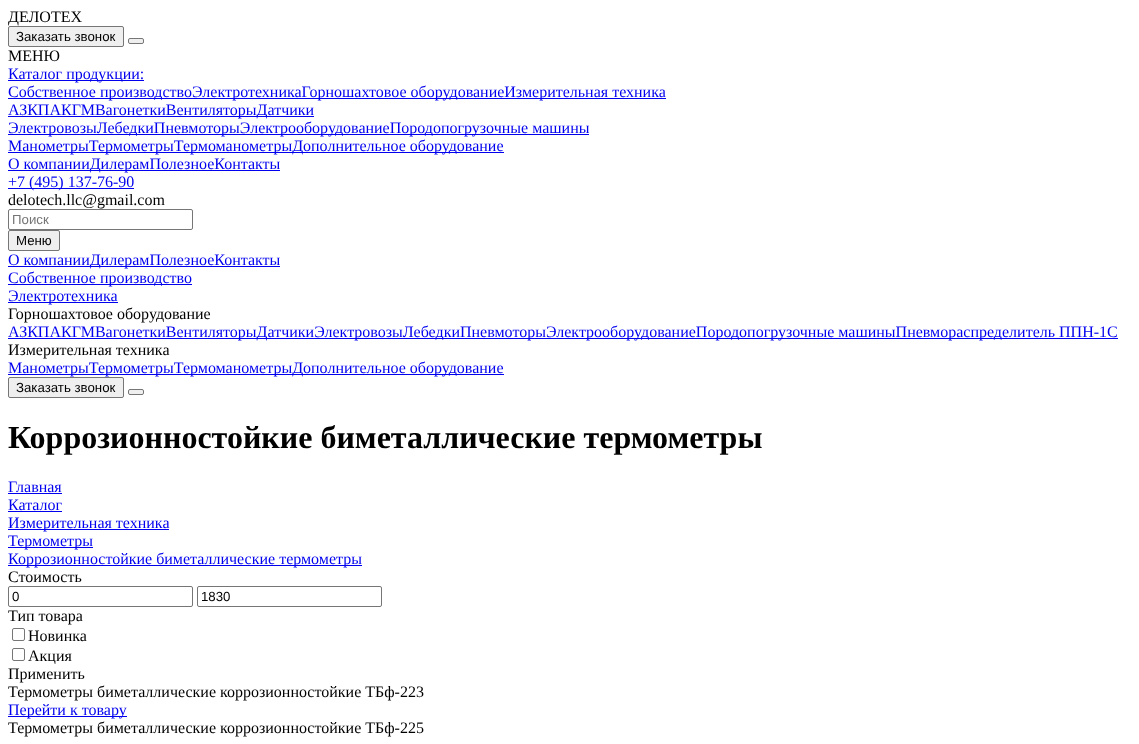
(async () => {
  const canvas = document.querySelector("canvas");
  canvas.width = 1139;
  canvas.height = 744;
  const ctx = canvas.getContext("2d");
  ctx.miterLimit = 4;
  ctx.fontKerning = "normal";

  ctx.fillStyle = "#ffffff";
  ctx.fillRect(0, 0, 1139, 744);
  ctx.fillStyle = "#efefef";
  ctx.beginPath();
  ctx.roundRect(8.5, 26.5, 115, 20, 1.5);
  ctx.fill();
  ctx.strokeStyle = "#767676";
  ctx.stroke();
  ctx.beginPath();
  ctx.roundRect(128.5, 38.5, 15, 5, 1.5);
  ctx.fill();
  ctx.stroke();
  for (const [x, y, w, h, color] of [
    [8, 80, 136, 1, "#0000ee"],
    [8, 98, 658, 1, "#0000ee"],
    [8, 116, 306, 1, "#0000ee"],
    [8, 134, 581, 1, "#0000ee"],
    [8, 152, 496, 1, "#0000ee"],
    [8, 170, 141, 1, "#0000ee"],
    [149, 170, 131, 1, "#0000ee"],
    [8, 188, 126, 1, "#0000ee"],
  ]) {
    ctx.fillStyle = color;
    ctx.fillRect(x, y, w, h);
  }
  ctx.beginPath();
  ctx.roundRect(8.5, 209.5, 184, 20, 1.5);
  ctx.stroke();
  ctx.fillStyle = "#efefef";
  ctx.beginPath();
  ctx.roundRect(8.5, 230.5, 51, 20, 1.5);
  ctx.fill();
  ctx.stroke();
  for (const [x, y, w, h, color] of [
    [8, 266, 141, 1, "#0000ee"],
    [149, 266, 131, 1, "#0000ee"],
    [8, 284, 184, 1, "#0000ee"],
    [8, 302, 110, 1, "#0000ee"],
    [8, 338, 1110, 1, "#0000ee"],
    [8, 374, 496, 1, "#0000ee"],
  ]) {
    ctx.fillStyle = color;
    ctx.fillRect(x, y, w, h);
  }
  ctx.fillStyle = "#efefef";
  ctx.beginPath();
  ctx.roundRect(8.5, 377.5, 115, 20, 1.5);
  ctx.fill();
  ctx.stroke();
  ctx.beginPath();
  ctx.roundRect(128.5, 389.5, 15, 5, 1.5);
  ctx.fill();
  ctx.stroke();
  for (const [x, y, w, h, color] of [
    [8, 493, 54, 1, "#0000ee"],
    [8, 511, 54, 1, "#0000ee"],
    [8, 529, 161, 1, "#0000ee"],
    [8, 547, 85, 1, "#0000ee"],
    [8, 565, 354, 1, "#0000ee"],
  ]) {
    ctx.fillStyle = color;
    ctx.fillRect(x, y, w, h);
  }
  ctx.beginPath();
  ctx.roundRect(8.5, 586.5, 184, 20, 1.5);
  ctx.stroke();
  ctx.beginPath();
  ctx.roundRect(197.5, 586.5, 184, 20, 1.5);
  ctx.stroke();
  ctx.beginPath();
  ctx.roundRect(12.5, 628.5, 12, 12, 1.5);
  ctx.stroke();
  ctx.beginPath();
  ctx.roundRect(12.5, 648.5, 12, 12, 1.5);
  ctx.stroke();
  ctx.fillRect(8, 716, 119, 1);
  ctx.font = "16px Liberation Serif";
  ctx.fillStyle = "#000000";
  ctx.fillText("ДЕЛОТЕХ", 8, 22);
  ctx.font = "13.25px Liberation Sans";
  ctx.fillText("Заказать звонок", 16, 41);
  ctx.font = "16px Liberation Serif";
  ctx.fillText("МЕНЮ", 8, 61);
  ctx.fillStyle = "#0000ee";
  for (const [text, x, y] of [
    ["Каталог продукции:", 8, 79],
    ["Собственное производствоЭлектротехникаГорношахтовое оборудованиеИзмерительная техника", 8, 97],
    ["АЗКПАКГМВагонеткиВентиляторыДатчики", 8, 115],
    ["ЭлектровозыЛебедкиПневмоторыЭлектрооборудованиеПородопогрузочные машины", 8, 133],
    ["МанометрыТермометрыТермоманометрыДополнительное оборудование", 8, 151],
    ["О компанииДилерамПолезноеКонтакты", 8, 169],
    ["+7 (495) 137-76-90", 8, 187],
  ]) {
    ctx.fillText(text, x, y);
  }
  ctx.fillStyle = "#000000";
  ctx.fillText("delotech.llc@gmail.com", 8, 205);
  ctx.font = "13.25px Liberation Sans";
  ctx.fillStyle = "#757575";
  ctx.fillText("Поиск", 12, 224);
  ctx.fillStyle = "#000000";
  ctx.fillText("Меню", 16, 245);
  ctx.font = "16px Liberation Serif";
  ctx.fillStyle = "#0000ee";
  for (const [text, x, y] of [
    ["О компанииДилерамПолезноеКонтакты", 8, 265],
    ["Собственное производство", 8, 283],
    ["Электротехника", 8, 301],
  ]) {
    ctx.fillText(text, x, y);
  }
  ctx.fillStyle = "#000000";
  ctx.fillText("Горношахтовое оборудование", 8, 319);
  ctx.fillStyle = "#0000ee";
  ctx.fillText("АЗКПАКГМВагонеткиВентиляторыДатчикиЭлектровозыЛебедкиПневмоторыЭлектрооборудованиеПородопогрузочные машиныПневмораспределитель ППН-1С", 8, 337);
  ctx.fillStyle = "#000000";
  ctx.fillText("Измерительная техника", 8, 355);
  ctx.fillStyle = "#0000ee";
  ctx.fillText("МанометрыТермометрыТермоманометрыДополнительное оборудование", 8, 373);
  ctx.font = "13.25px Liberation Sans";
  ctx.fillStyle = "#000000";
  ctx.fillText("Заказать звонок", 16, 392);
  ctx.font = "bold 32px Liberation Serif";
  ctx.fillText("Коррозионностойкие биметаллические термометры", 8, 448);
  ctx.font = "16px Liberation Serif";
  ctx.fillStyle = "#0000ee";
  for (const [text, x, y] of [
    ["Главная", 8, 492],
    ["Каталог", 8, 510],
    ["Измерительная техника", 8, 528],
    ["Термометры", 8, 546],
    ["Коррозионностойкие биметаллические термометры", 8, 564],
  ]) {
    ctx.fillText(text, x, y);
  }
  ctx.fillStyle = "#000000";
  ctx.fillText("Стоимость", 8, 582);
  ctx.font = "13.25px Liberation Sans";
  ctx.fillText("0", 12, 601);
  ctx.fillText("1830", 201, 601);
  ctx.font = "16px Liberation Serif";
  for (const [text, x, y] of [
    ["Тип товара", 8, 621],
    ["Новинка", 28, 641],
    ["Акция", 28, 661],
    ["Применить", 8, 679],
    ["Термометры биметаллические коррозионностойкие ТБф-223", 8, 697],
  ]) {
    ctx.fillText(text, x, y);
  }
  ctx.fillStyle = "#0000ee";
  ctx.fillText("Перейти к товару", 8, 715);
  ctx.fillStyle = "#000000";
  ctx.fillText("Термометры биметаллические коррозионностойкие ТБф-225", 8, 733);
})();
